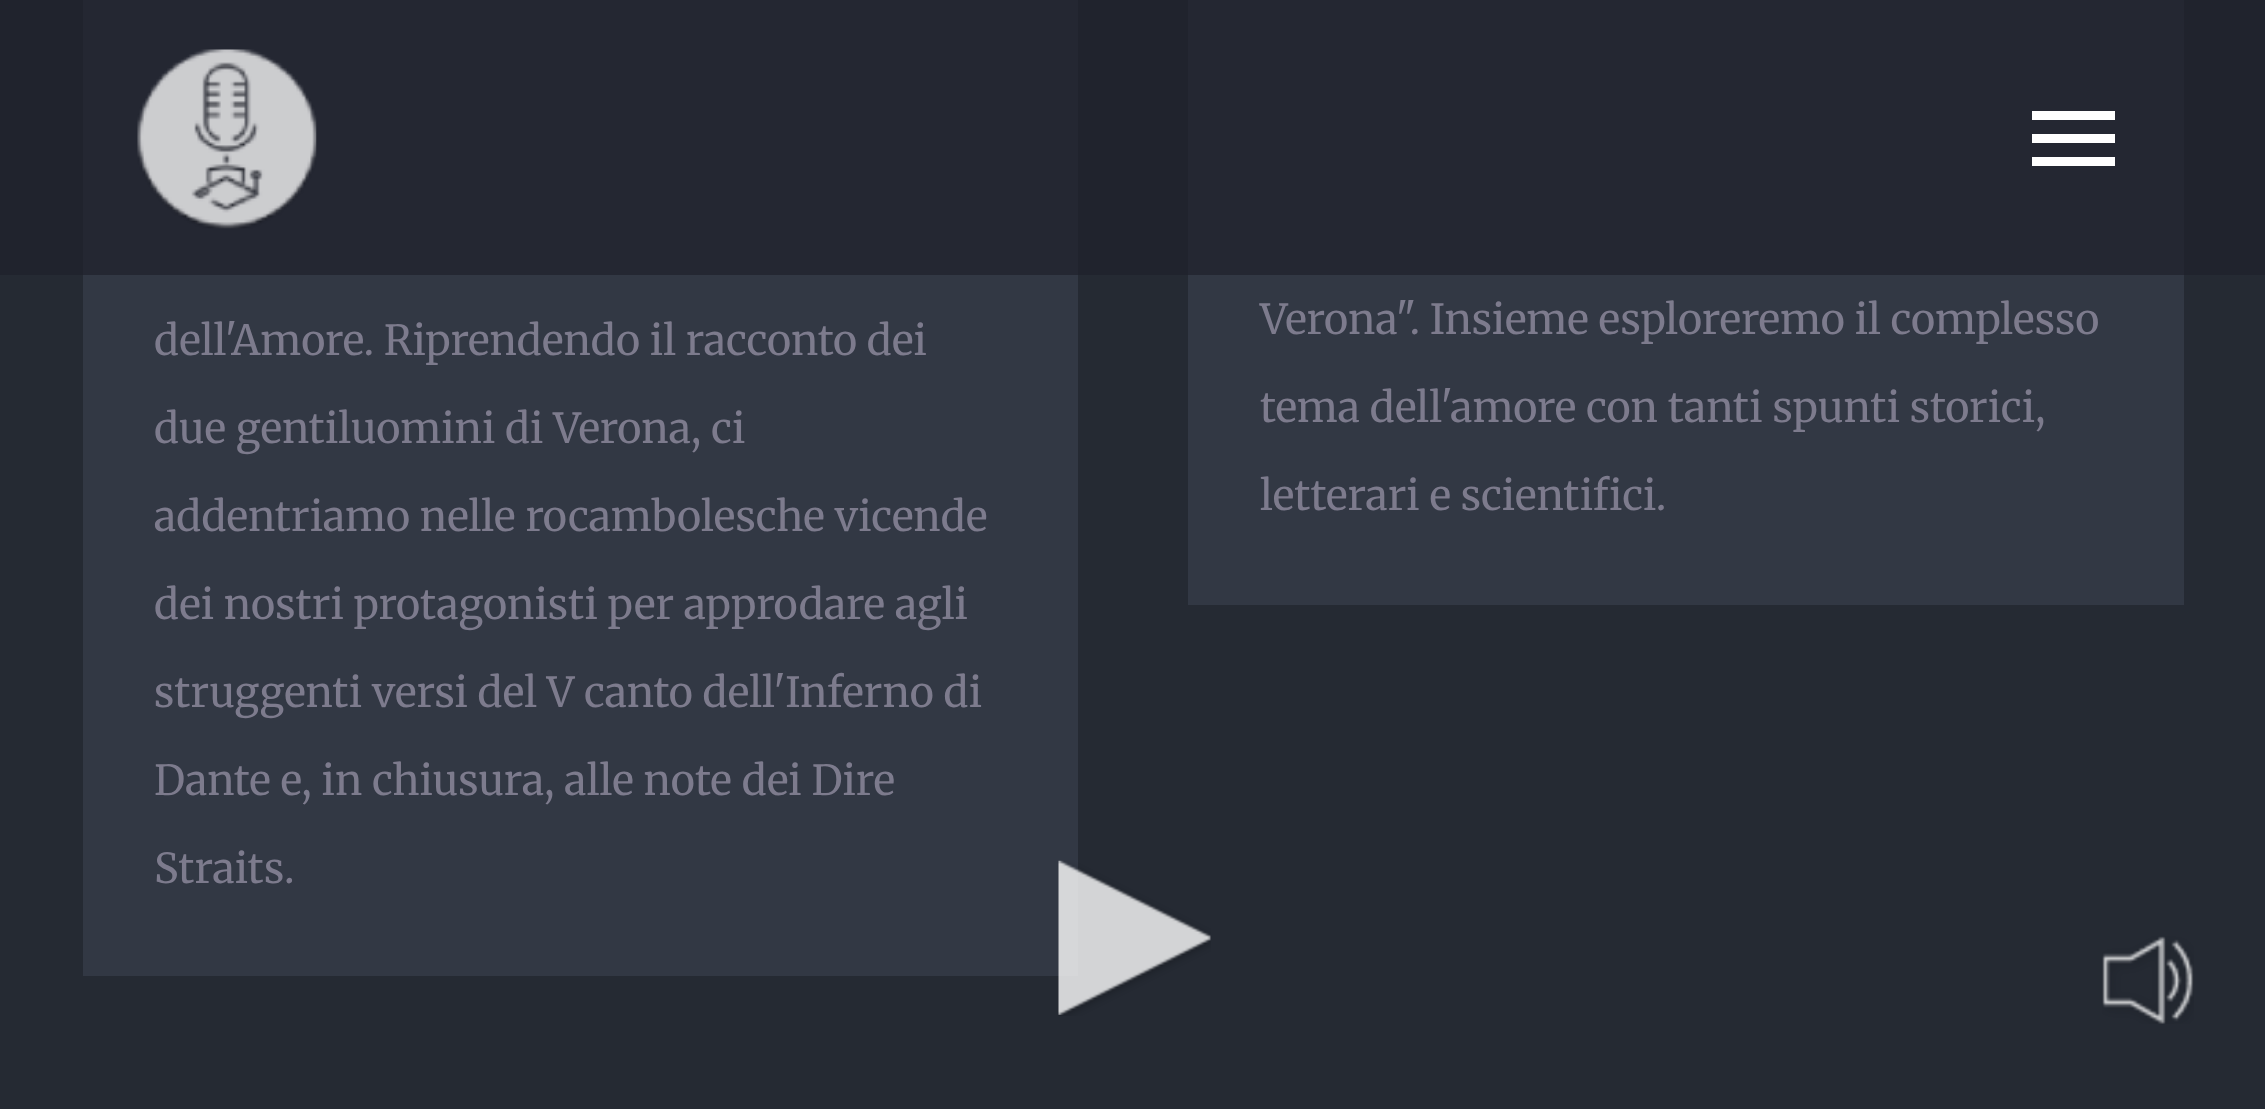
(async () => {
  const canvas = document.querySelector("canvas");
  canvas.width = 2265;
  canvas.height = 1109;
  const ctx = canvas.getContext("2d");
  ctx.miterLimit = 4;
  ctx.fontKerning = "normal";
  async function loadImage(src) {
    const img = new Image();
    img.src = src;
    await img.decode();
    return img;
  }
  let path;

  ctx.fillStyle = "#252a33";
  ctx.fillRect(0, 0, 2265, 1109);
  for (const [x, y, w, h, color] of [
    [86, 0, 989, 968, "#323844"],
    [1075, 0, 3, 976, "#323844"],
    [83, 968, 995, 8, "#323844"],
    [83, 0, 3, 976, "#323844"],
    [1191, 0, 990, 597, "#323844"],
    [2181, 0, 3, 605, "#323844"],
    [1188, 597, 996, 8, "#323844"],
    [1188, 0, 3, 605, "#323844"],
    [0, 0, 2265, 275, "rgba(30, 33, 43, 0.7)"],
  ]) {
    ctx.fillStyle = color;
    ctx.fillRect(x, y, w, h);
  }
  ctx.drawImage(await loadImage("img/1.png"), 137, 49, 180, 180);
  ctx.fillStyle = "#ffffff";
  path = new Path2D("M2032 111H2115V120H2032ZM2032 143V134H2115V143ZM2032 166V157H2115V166Z");
  ctx.fill(path);
  ctx.drawImage(await loadImage("img/2.png"), 1058, 860, 153, 156);
  ctx.drawImage(await loadImage("img/3.png"), 2102, 936, 92, 88);
  ctx.font = "41.25px Merriweather";
  ctx.fillStyle = "#7d7b8d";
  for (const [text, x, y] of [
    ["dell'Amore. Riprendendo il racconto dei", 154, 355],
    ["due gentiluomini di Verona, ci", 154, 443],
    ["addentriamo nelle rocambolesche vicende", 154, 531],
    ["dei nostri protagonisti per approdare agli", 154, 619],
    ["struggenti versi del V canto dell'Inferno di", 154, 707],
    ["Dante e, in chiusura, alle note dei Dire", 154, 795],
    ["Straits.", 154, 883],
    ["Verona\". Insieme esploreremo il complesso", 1260, 334],
    ["tema dell'amore con tanti spunti storici,", 1260, 422],
    ["letterari e scientifici.", 1260, 510],
  ]) {
    ctx.fillText(text, x, y);
  }
})();
